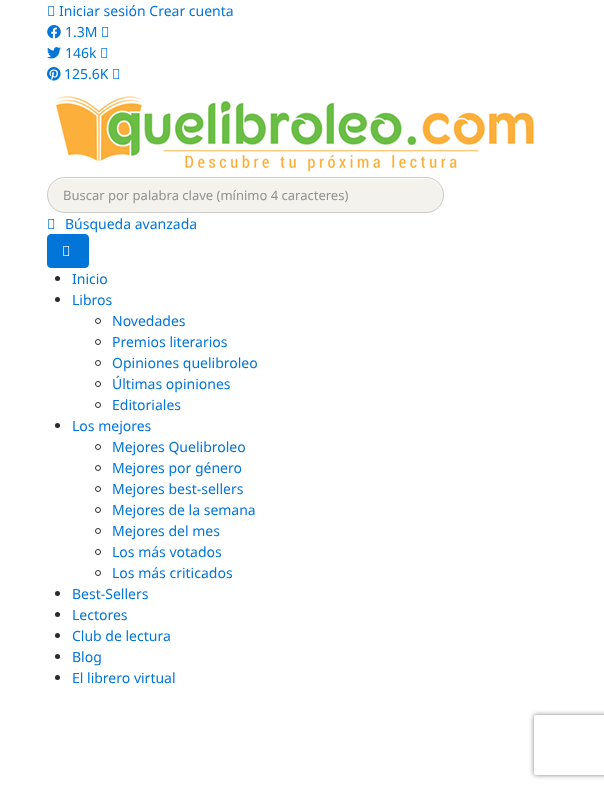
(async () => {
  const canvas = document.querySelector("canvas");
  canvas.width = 604;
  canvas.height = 789;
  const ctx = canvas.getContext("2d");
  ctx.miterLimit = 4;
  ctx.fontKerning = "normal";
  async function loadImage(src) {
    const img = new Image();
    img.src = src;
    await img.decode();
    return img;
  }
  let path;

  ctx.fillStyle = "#ffffff";
  ctx.fillRect(0, 0, 604, 789);
  ctx.drawImage(await loadImage("img/1.png"), 48, 6, 7, 10);
  ctx.drawImage(await loadImage("img/2.png"), 47, 25, 14, 14);
  ctx.drawImage(await loadImage("img/1.png"), 102, 27, 7, 10);
  ctx.drawImage(await loadImage("img/3.png"), 47, 47, 14, 12);
  ctx.drawImage(await loadImage("img/1.png"), 101, 48, 7, 10);
  ctx.drawImage(await loadImage("img/4.png"), 47, 67, 14, 14);
  ctx.drawImage(await loadImage("img/1.png"), 113, 69, 7, 10);
  ctx.drawImage(await loadImage("img/5.png"), 55, 96, 479, 76);
  ctx.fillStyle = "#f3f2ed";
  ctx.beginPath();
  ctx.roundRect(47, 177, 397, 36, 18);
  ctx.fill();
  ctx.fillStyle = "#ffffff";
  path = new Path2D("M65 179H426C435 179 443 187 443 196C443 186 435 178 426 178H65C56 178 48 186 48 196C48 187 56 179 65 179Z");
  ctx.fill(path);
  ctx.beginPath();
  ctx.roundRect(47.5, 177.5, 396, 35, 17.5);
  ctx.strokeStyle = "#cccccc";
  ctx.stroke();
  ctx.drawImage(await loadImage("img/1.png"), 48, 219, 7, 10);
  ctx.fillStyle = "#0275d8";
  ctx.beginPath();
  ctx.roundRect(47.5, 234.5, 41, 33, 3.5);
  ctx.fill();
  ctx.strokeStyle = "#0275d8";
  ctx.stroke();
  ctx.drawImage(await loadImage("img/6.png"), 63, 246, 7, 10);
  ctx.fillStyle = "#292b2c";
  ctx.beginPath();
  ctx.arc(57.5, 278.5, 2.5, 0, Math.PI * 2);
  ctx.fill();
  ctx.beginPath();
  ctx.arc(57.5, 299.5, 2.5, 0, Math.PI * 2);
  ctx.fill();
  ctx.beginPath();
  ctx.arc(98, 321, 2.5, 0, Math.PI * 2);
  ctx.strokeStyle = "#292b2c";
  ctx.stroke();
  ctx.beginPath();
  ctx.arc(98, 342, 2.5, 0, Math.PI * 2);
  ctx.stroke();
  ctx.beginPath();
  ctx.arc(98, 363, 2.5, 0, Math.PI * 2);
  ctx.stroke();
  ctx.beginPath();
  ctx.arc(98, 384, 2.5, 0, Math.PI * 2);
  ctx.stroke();
  ctx.beginPath();
  ctx.arc(98, 405, 2.5, 0, Math.PI * 2);
  ctx.stroke();
  ctx.beginPath();
  ctx.arc(57.5, 425.5, 2.5, 0, Math.PI * 2);
  ctx.fill();
  ctx.beginPath();
  ctx.arc(98, 447, 2.5, 0, Math.PI * 2);
  ctx.stroke();
  ctx.beginPath();
  ctx.arc(98, 468, 2.5, 0, Math.PI * 2);
  ctx.stroke();
  ctx.beginPath();
  ctx.arc(98, 489, 2.5, 0, Math.PI * 2);
  ctx.stroke();
  ctx.beginPath();
  ctx.arc(98, 510, 2.5, 0, Math.PI * 2);
  ctx.stroke();
  ctx.beginPath();
  ctx.arc(98, 531, 2.5, 0, Math.PI * 2);
  ctx.stroke();
  ctx.beginPath();
  ctx.arc(98, 552, 2.5, 0, Math.PI * 2);
  ctx.stroke();
  ctx.beginPath();
  ctx.arc(98, 573, 2.5, 0, Math.PI * 2);
  ctx.stroke();
  ctx.beginPath();
  ctx.arc(57.5, 593.5, 2.5, 0, Math.PI * 2);
  ctx.fill();
  ctx.beginPath();
  ctx.arc(57.5, 614.5, 2.5, 0, Math.PI * 2);
  ctx.fill();
  ctx.beginPath();
  ctx.arc(57.5, 635.5, 2.5, 0, Math.PI * 2);
  ctx.fill();
  ctx.beginPath();
  ctx.arc(57.5, 656.5, 2.5, 0, Math.PI * 2);
  ctx.fill();
  ctx.beginPath();
  ctx.arc(57.5, 677.5, 2.5, 0, Math.PI * 2);
  ctx.fill();
  ctx.save();
  path = new Path2D("M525 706H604V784H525ZM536 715H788C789 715 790 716 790 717V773C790 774 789 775 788 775H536C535 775 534 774 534 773V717C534 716 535 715 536 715Z");
  ctx.clip(path, "evenodd");
  ctx.fillStyle = "#808080";
  ctx.filter = "blur(2.5px)";
  ctx.beginPath();
  ctx.roundRect(534, 715, 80, 60, 2);
  ctx.fill();
  ctx.filter = "none";
  ctx.restore();
  ctx.font = "14px Noto Sans";
  ctx.fillStyle = "#0275d8";
  for (const [text, x, y] of [
    ["Iniciar sesión Crear cuenta", 59, 16],
    ["1.3M", 65, 37],
    ["146k", 65, 58],
    ["125.6K", 64, 79],
  ]) {
    ctx.fillText(text, x, y);
  }
  ctx.font = "13px Noto Sans";
  ctx.fillStyle = "#92918e";
  ctx.fillText("Buscar por palabra clave (mínimo 4 caracteres)", 63, 200);
  ctx.font = "14px Noto Sans";
  ctx.fillStyle = "#0275d8";
  for (const [text, x, y] of [
    ["Búsqueda avanzada", 65, 229],
    ["Inicio", 72, 284],
    ["Libros", 72, 305],
    ["Novedades", 112, 326],
    ["Premios literarios", 112, 347],
    ["Opiniones quelibroleo", 112, 368],
    ["Últimas opiniones", 112, 389],
    ["Editoriales", 112, 410],
    ["Los mejores", 72, 431],
    ["Mejores Quelibroleo", 112, 452],
    ["Mejores por género", 112, 473],
    ["Mejores best-sellers", 112, 494],
    ["Mejores de la semana", 112, 515],
    ["Mejores del mes", 112, 536],
    ["Los más votados", 112, 557],
    ["Los más criticados", 112, 578],
    ["Best-Sellers", 72, 599],
    ["Lectores", 72, 620],
    ["Club de lectura", 72, 641],
    ["Blog", 72, 662],
    ["El librero virtual", 72, 683],
  ]) {
    ctx.fillText(text, x, y);
  }
})();
